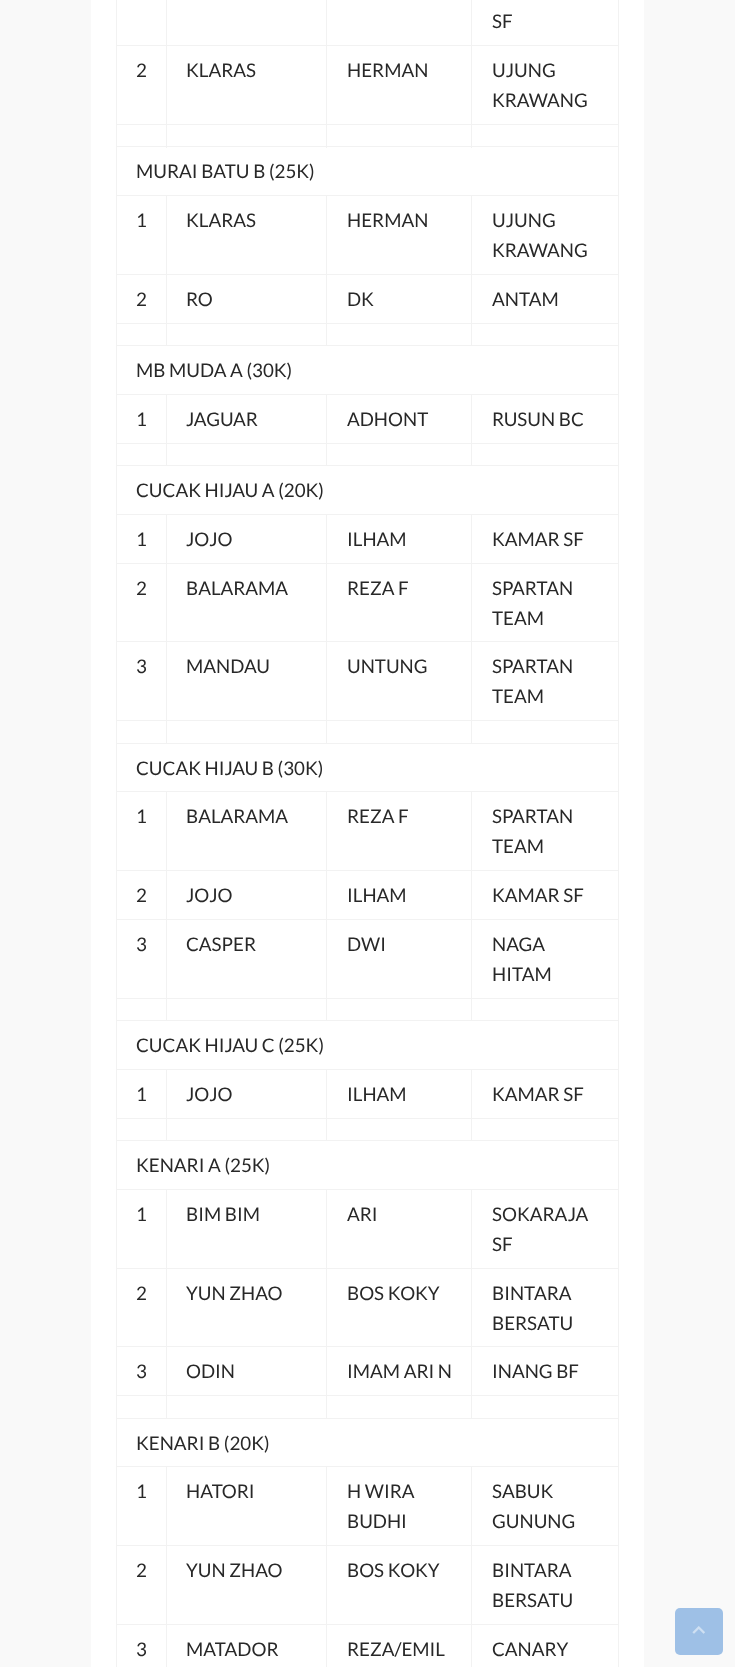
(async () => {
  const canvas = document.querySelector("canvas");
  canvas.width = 735;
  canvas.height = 1667;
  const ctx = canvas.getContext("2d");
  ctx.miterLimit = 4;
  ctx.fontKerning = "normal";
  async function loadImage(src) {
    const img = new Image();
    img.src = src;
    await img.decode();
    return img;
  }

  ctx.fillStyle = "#f9f9f9";
  ctx.fillRect(0, 0, 735, 1667);
  for (const [x, y, w, h, color] of [
    [91, 0, 553, 1667, "#ffffff"],
    [116, 0, 1, 1667, "#f2f2f2"],
    [116, 45, 503, 1, "#f2f2f2"],
    [116, 124, 503, 1, "#f2f2f2"],
    [116, 146, 503, 1, "#f2f2f2"],
    [166, 124, 1, 24, "#f2f2f2"],
    [166, 0, 1, 125, "#f2f2f2"],
    [326, 124, 1, 24, "#f2f2f2"],
    [326, 0, 1, 125, "#f2f2f2"],
    [471, 124, 1, 24, "#f2f2f2"],
    [471, 0, 1, 125, "#f2f2f2"],
    [116, 195, 503, 1, "#f2f2f2"],
    [116, 274, 503, 1, "#f2f2f2"],
    [116, 323, 503, 1, "#f2f2f2"],
    [116, 345, 503, 1, "#f2f2f2"],
    [116, 394, 503, 1, "#f2f2f2"],
    [116, 443, 503, 1, "#f2f2f2"],
    [116, 465, 503, 1, "#f2f2f2"],
    [116, 514, 503, 1, "#f2f2f2"],
    [116, 563, 503, 1, "#f2f2f2"],
    [116, 641, 503, 1, "#f2f2f2"],
    [116, 720, 503, 1, "#f2f2f2"],
    [116, 743, 503, 1, "#f2f2f2"],
    [116, 791, 503, 1, "#f2f2f2"],
    [116, 870, 503, 1, "#f2f2f2"],
    [116, 919, 503, 1, "#f2f2f2"],
    [116, 998, 503, 1, "#f2f2f2"],
    [116, 1020, 503, 1, "#f2f2f2"],
    [116, 1069, 503, 1, "#f2f2f2"],
    [116, 1118, 503, 1, "#f2f2f2"],
    [116, 1140, 503, 1, "#f2f2f2"],
    [116, 1189, 503, 1, "#f2f2f2"],
    [116, 1268, 503, 1, "#f2f2f2"],
    [116, 1346, 503, 1, "#f2f2f2"],
    [116, 1395, 503, 1, "#f2f2f2"],
    [116, 1418, 503, 1, "#f2f2f2"],
    [116, 1466, 503, 1, "#f2f2f2"],
    [116, 1545, 503, 1, "#f2f2f2"],
    [116, 1624, 503, 1, "#f2f2f2"],
    [618, 1624, 1, 43, "#f2f2f2"],
    [618, 1545, 1, 80, "#f2f2f2"],
    [618, 1466, 1, 80, "#f2f2f2"],
    [618, 1418, 1, 50, "#f2f2f2"],
    [618, 1395, 1, 24, "#f2f2f2"],
    [618, 1346, 1, 50, "#f2f2f2"],
    [618, 1268, 1, 80, "#f2f2f2"],
    [618, 1189, 1, 80, "#f2f2f2"],
    [618, 1140, 1, 50, "#f2f2f2"],
    [618, 1118, 1, 23, "#f2f2f2"],
    [618, 1069, 1, 50, "#f2f2f2"],
    [618, 1020, 1, 50, "#f2f2f2"],
    [618, 998, 1, 23, "#f2f2f2"],
    [618, 919, 1, 80, "#f2f2f2"],
    [618, 870, 1, 50, "#f2f2f2"],
    [618, 791, 1, 80, "#f2f2f2"],
    [618, 743, 1, 50, "#f2f2f2"],
    [618, 720, 1, 24, "#f2f2f2"],
    [618, 641, 1, 80, "#f2f2f2"],
    [618, 563, 1, 80, "#f2f2f2"],
    [618, 514, 1, 50, "#f2f2f2"],
    [618, 465, 1, 50, "#f2f2f2"],
    [618, 443, 1, 23, "#f2f2f2"],
    [618, 394, 1, 50, "#f2f2f2"],
    [618, 345, 1, 50, "#f2f2f2"],
    [618, 323, 1, 23, "#f2f2f2"],
    [618, 274, 1, 50, "#f2f2f2"],
    [618, 195, 1, 80, "#f2f2f2"],
    [618, 146, 1, 50, "#f2f2f2"],
    [618, 124, 1, 24, "#f2f2f2"],
    [618, 0, 1, 125, "#f2f2f2"],
    [166, 323, 1, 23, "#f2f2f2"],
    [166, 274, 1, 50, "#f2f2f2"],
    [166, 195, 1, 80, "#f2f2f2"],
    [326, 323, 1, 23, "#f2f2f2"],
    [326, 274, 1, 50, "#f2f2f2"],
    [326, 195, 1, 80, "#f2f2f2"],
    [471, 323, 1, 23, "#f2f2f2"],
    [471, 274, 1, 50, "#f2f2f2"],
    [471, 195, 1, 80, "#f2f2f2"],
    [166, 443, 1, 23, "#f2f2f2"],
    [166, 394, 1, 50, "#f2f2f2"],
    [326, 443, 1, 23, "#f2f2f2"],
    [326, 394, 1, 50, "#f2f2f2"],
    [471, 443, 1, 23, "#f2f2f2"],
    [471, 394, 1, 50, "#f2f2f2"],
    [166, 720, 1, 24, "#f2f2f2"],
    [166, 641, 1, 80, "#f2f2f2"],
    [166, 563, 1, 80, "#f2f2f2"],
    [166, 514, 1, 50, "#f2f2f2"],
    [326, 720, 1, 24, "#f2f2f2"],
    [326, 641, 1, 80, "#f2f2f2"],
    [326, 563, 1, 80, "#f2f2f2"],
    [326, 514, 1, 50, "#f2f2f2"],
    [471, 720, 1, 24, "#f2f2f2"],
    [471, 641, 1, 80, "#f2f2f2"],
    [471, 563, 1, 80, "#f2f2f2"],
    [471, 514, 1, 50, "#f2f2f2"],
    [166, 998, 1, 23, "#f2f2f2"],
    [166, 919, 1, 80, "#f2f2f2"],
    [166, 870, 1, 50, "#f2f2f2"],
    [166, 791, 1, 80, "#f2f2f2"],
    [326, 998, 1, 23, "#f2f2f2"],
    [326, 919, 1, 80, "#f2f2f2"],
    [326, 870, 1, 50, "#f2f2f2"],
    [326, 791, 1, 80, "#f2f2f2"],
    [471, 998, 1, 23, "#f2f2f2"],
    [471, 919, 1, 80, "#f2f2f2"],
    [471, 870, 1, 50, "#f2f2f2"],
    [471, 791, 1, 80, "#f2f2f2"],
    [166, 1118, 1, 23, "#f2f2f2"],
    [166, 1069, 1, 50, "#f2f2f2"],
    [326, 1118, 1, 23, "#f2f2f2"],
    [326, 1069, 1, 50, "#f2f2f2"],
    [471, 1118, 1, 23, "#f2f2f2"],
    [471, 1069, 1, 50, "#f2f2f2"],
    [166, 1395, 1, 24, "#f2f2f2"],
    [166, 1346, 1, 50, "#f2f2f2"],
    [166, 1268, 1, 80, "#f2f2f2"],
    [166, 1189, 1, 80, "#f2f2f2"],
    [326, 1395, 1, 24, "#f2f2f2"],
    [326, 1346, 1, 50, "#f2f2f2"],
    [326, 1268, 1, 80, "#f2f2f2"],
    [326, 1189, 1, 80, "#f2f2f2"],
    [471, 1395, 1, 24, "#f2f2f2"],
    [471, 1346, 1, 50, "#f2f2f2"],
    [471, 1268, 1, 80, "#f2f2f2"],
    [471, 1189, 1, 80, "#f2f2f2"],
    [166, 1624, 1, 43, "#f2f2f2"],
    [166, 1545, 1, 80, "#f2f2f2"],
    [166, 1466, 1, 80, "#f2f2f2"],
    [326, 1624, 1, 43, "#f2f2f2"],
    [326, 1545, 1, 80, "#f2f2f2"],
    [326, 1466, 1, 80, "#f2f2f2"],
    [471, 1624, 1, 43, "#f2f2f2"],
    [471, 1545, 1, 80, "#f2f2f2"],
    [471, 1466, 1, 80, "#f2f2f2"],
  ]) {
    ctx.fillStyle = color;
    ctx.fillRect(x, y, w, h);
  }
  ctx.fillStyle = "#9ec0e6";
  ctx.beginPath();
  ctx.roundRect(675, 1608, 48, 47, 5);
  ctx.fill();
  ctx.drawImage(await loadImage("img/1.png"), 692, 1626, 13, 8);
  ctx.font = "18.75px Lato";
  ctx.fillStyle = "#282828";
  for (const [text, x, y] of [
    ["SF", 492, 28],
    ["2", 136, 77],
    ["KLARAS", 186, 77],
    ["HERMAN", 347, 77],
    ["UJUNG", 492, 77],
    ["KRAWANG", 492, 107],
    ["MURAI BATU B (25K)", 136, 178],
    ["1", 136, 227],
    ["KLARAS", 186, 227],
    ["HERMAN", 347, 227],
    ["UJUNG", 492, 227],
    ["KRAWANG", 492, 257],
    ["2", 136, 306],
    ["RO", 186, 306],
    ["DK", 347, 306],
    ["ANTAM", 492, 306],
    ["MB MUDA A (30K)", 136, 377],
    ["1", 136, 426],
    ["JAGUAR", 186, 426],
    ["ADHONT", 347, 426],
    ["RUSUN BC", 492, 426],
    ["CUCAK HIJAU A (20K)", 136, 497],
    ["1", 136, 546],
    ["JOJO", 186, 546],
    ["ILHAM", 347, 546],
    ["KAMAR SF", 492, 546],
    ["2", 136, 595],
    ["BALARAMA", 186, 595],
    ["REZA F", 347, 595],
    ["SPARTAN", 492, 595],
    ["TEAM", 492, 625],
    ["3", 136, 673],
    ["MANDAU", 186, 673],
    ["UNTUNG", 347, 673],
    ["SPARTAN", 492, 673],
    ["TEAM", 492, 703],
    ["CUCAK HIJAU B (30K)", 136, 775],
    ["1", 136, 823],
    ["BALARAMA", 186, 823],
    ["REZA F", 347, 823],
    ["SPARTAN", 492, 823],
    ["TEAM", 492, 853],
    ["2", 136, 902],
    ["JOJO", 186, 902],
    ["ILHAM", 347, 902],
    ["KAMAR SF", 492, 902],
    ["3", 136, 951],
    ["CASPER", 186, 951],
    ["DWI", 347, 951],
    ["NAGA", 492, 951],
    ["HITAM", 492, 981],
    ["CUCAK HIJAU C (25K)", 136, 1052],
    ["1", 136, 1101],
    ["JOJO", 186, 1101],
    ["ILHAM", 347, 1101],
    ["KAMAR SF", 492, 1101],
    ["KENARI A (25K)", 136, 1172],
    ["1", 136, 1221],
    ["BIM BIM", 186, 1221],
    ["ARI", 347, 1221],
    ["SOKARAJA", 492, 1221],
    ["SF", 492, 1251],
    ["2", 136, 1300],
    ["YUN ZHAO", 186, 1300],
    ["BOS KOKY", 347, 1300],
    ["BINTARA", 492, 1300],
    ["BERSATU", 492, 1330],
    ["3", 136, 1378],
    ["ODIN", 186, 1378],
    ["IMAM ARI N", 347, 1378],
    ["INANG BF", 492, 1378],
    ["KENARI B (20K)", 136, 1450],
    ["1", 136, 1498],
    ["HATORI", 186, 1498],
    ["H WIRA", 347, 1498],
    ["BUDHI", 347, 1528],
    ["SABUK", 492, 1498],
    ["GUNUNG", 492, 1528],
    ["2", 136, 1577],
    ["YUN ZHAO", 186, 1577],
    ["BOS KOKY", 347, 1577],
    ["BINTARA", 492, 1577],
    ["BERSATU", 492, 1607],
    ["3", 136, 1656],
    ["MATADOR", 186, 1656],
    ["REZA/EMIL", 347, 1656],
    ["CANARY", 492, 1656],
  ]) {
    ctx.fillText(text, x, y);
  }
})();
